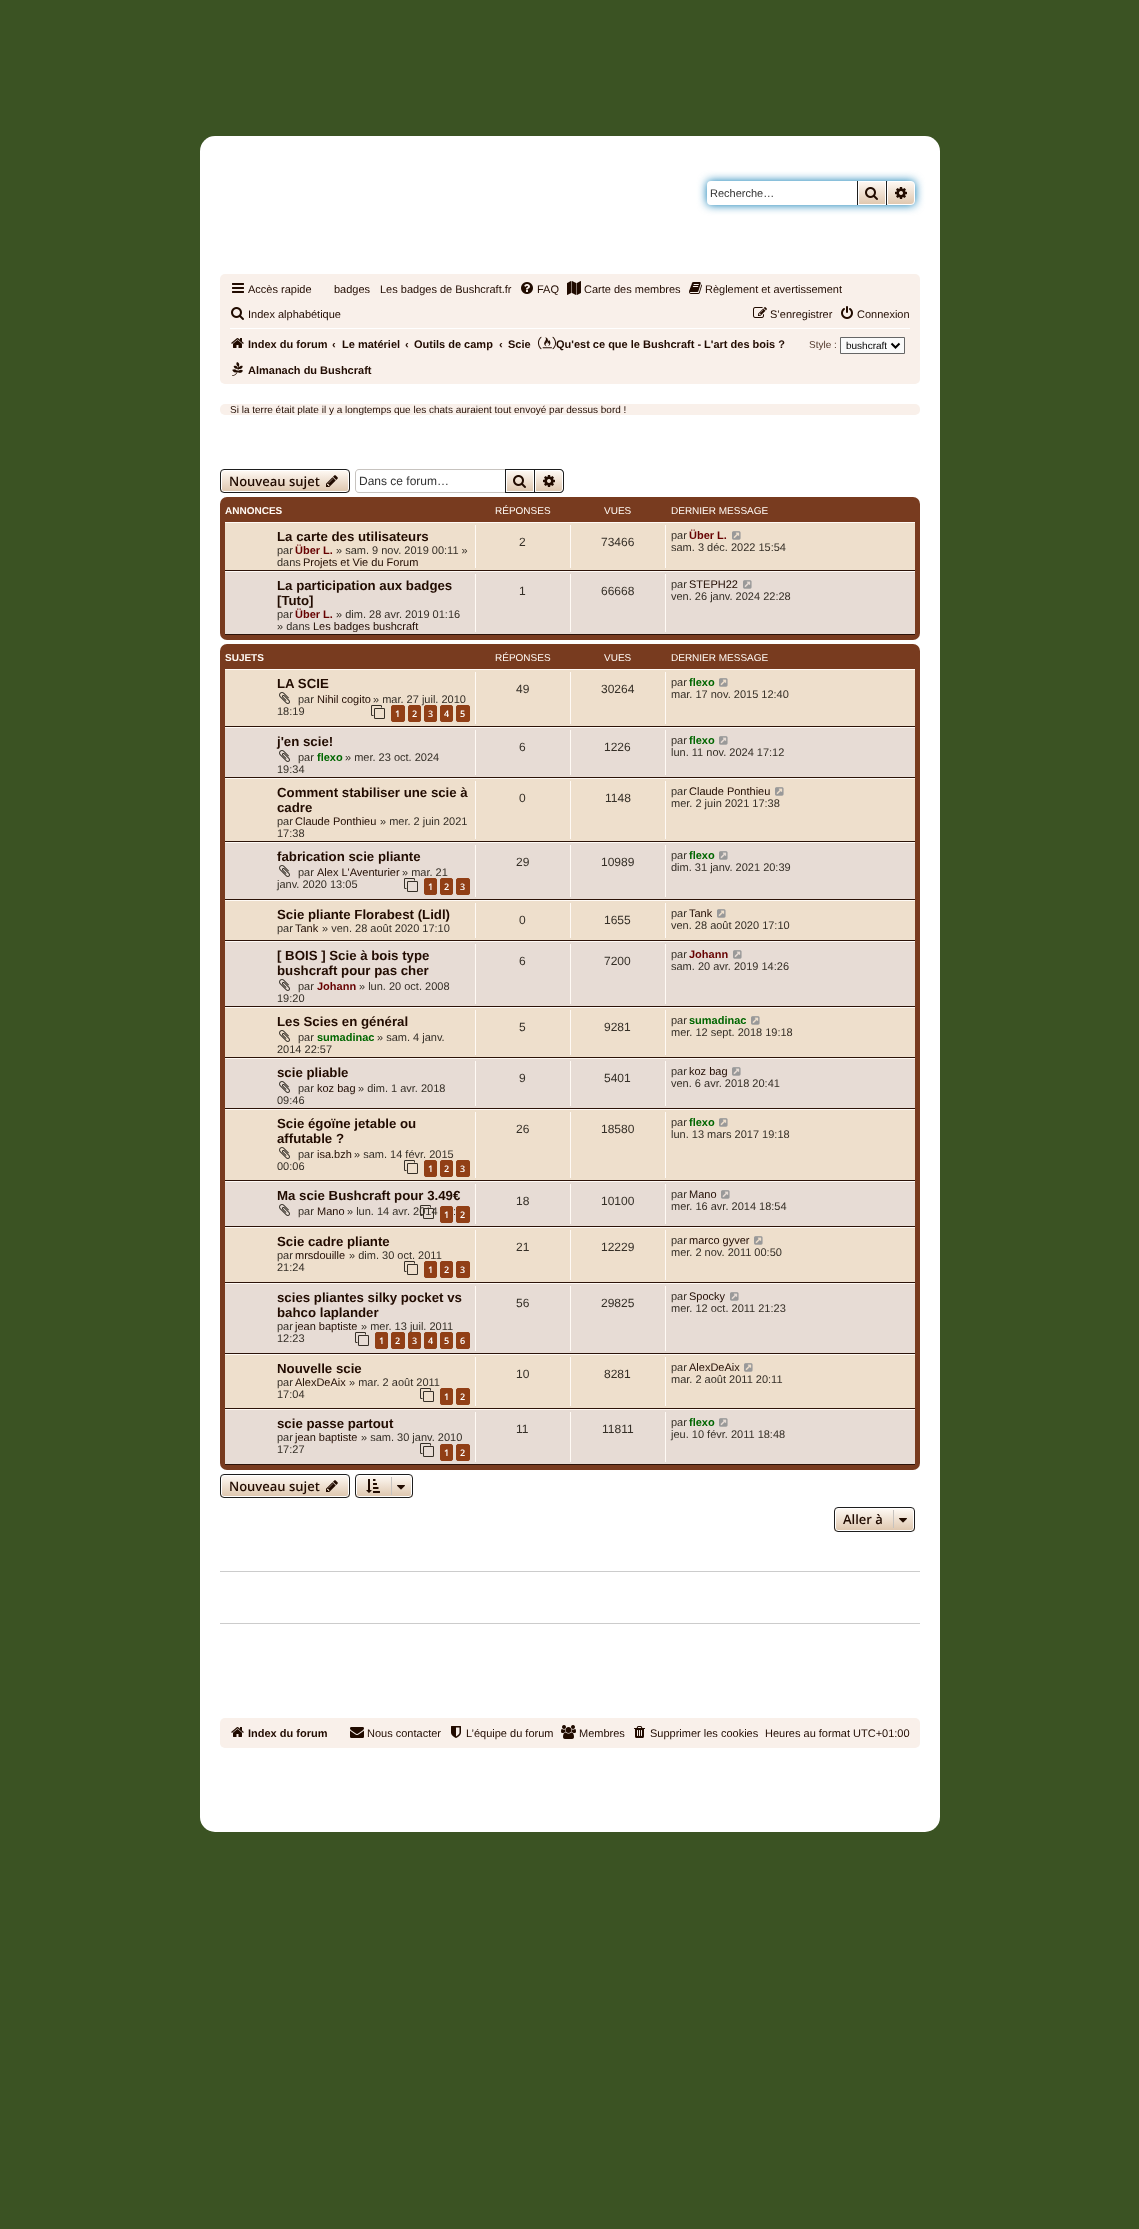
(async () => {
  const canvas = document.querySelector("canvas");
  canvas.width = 1139;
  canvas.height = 2229;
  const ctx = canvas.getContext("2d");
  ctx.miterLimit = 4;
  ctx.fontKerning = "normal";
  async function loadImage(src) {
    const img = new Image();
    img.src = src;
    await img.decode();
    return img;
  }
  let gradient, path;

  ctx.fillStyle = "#3b5323";
  ctx.fillRect(0, 0, 1139, 2229);
  ctx.fillStyle = "#ffffff";
  ctx.beginPath();
  ctx.roundRect(200, 136, 740, 1696, 15);
  ctx.fill();
  ctx.fillStyle = "#0075b0";
  ctx.filter = "blur(5px)";
  ctx.beginPath();
  ctx.roundRect(707, 181, 208, 24, 4);
  ctx.fill();
  ctx.filter = "none";
  ctx.fillStyle = "#ffffff";
  ctx.beginPath();
  ctx.roundRect(707, 181, 150, 24, [4, 0, 0, 4]);
  ctx.fill();
  gradient = ctx.createLinearGradient(872, 181, 872, 205);
  gradient.addColorStop(0, "#fffaf5");
  gradient.addColorStop(1, "#dec6ad");
  ctx.fillStyle = gradient;
  ctx.fillRect(859, 182, 26, 22);
  ctx.strokeStyle = "#ffffff";
  ctx.strokeRect(858.5, 181.5, 27, 23);
  ctx.fillStyle = "#1e1e1e";
  ctx.fillRect(886, 181, 1, 24);
  ctx.fillRect(857, 181, 1, 24);
  ctx.drawImage(await loadImage("img/1.png"), 865, 187, 13, 13);
  gradient = ctx.createLinearGradient(901, 181, 901, 205);
  gradient.addColorStop(0, "#fffaf5");
  gradient.addColorStop(1, "#dec6ad");
  ctx.fillStyle = gradient;
  ctx.beginPath();
  ctx.roundRect(887.5, 181.5, 27, 23, [0, 3.5, 3.5, 0]);
  ctx.fill();
  ctx.stroke();
  ctx.drawImage(await loadImage("img/2.png"), 895, 187, 12, 12);
  ctx.fillStyle = "#f9f0ea";
  ctx.beginPath();
  ctx.roundRect(220, 274, 700, 110, 5);
  ctx.fill();
  ctx.drawImage(await loadImage("img/3.png"), 232, 283, 12, 10);
  ctx.drawImage(await loadImage("img/4.png"), 521, 282, 12, 12);
  ctx.drawImage(await loadImage("img/5.png"), 567, 281, 14, 14);
  ctx.drawImage(await loadImage("img/6.png"), 689, 282, 13, 12);
  ctx.drawImage(await loadImage("img/7.png"), 231, 307, 13, 13);
  ctx.drawImage(await loadImage("img/8.png"), 753, 307, 14, 11);
  ctx.drawImage(await loadImage("img/9.png"), 841, 306, 12, 13);
  ctx.fillStyle = "#ffffff";
  ctx.fillRect(230, 328, 680, 1);
  ctx.drawImage(await loadImage("img/10.png"), 231, 338, 13, 10);
  ctx.drawImage(await loadImage("img/11.png"), 538, 336, 18, 14);
  ctx.fillStyle = "#fafafa";
  ctx.beginPath();
  ctx.rect(840.5, 337.5, 64, 16);
  ctx.fill();
  ctx.strokeStyle = "#666666";
  ctx.stroke();
  path = new Path2D("M891.5 343.5L895.5 347.5L899.5 343.5");
  ctx.strokeStyle = "#000000";
  ctx.lineWidth = 2;
  ctx.stroke(path);
  ctx.drawImage(await loadImage("img/12.png"), 232, 362, 11, 14);
  ctx.fillStyle = "#f9f0ea";
  ctx.beginPath();
  ctx.roundRect(220, 404, 700, 11, 5);
  ctx.fill();
  ctx.save();
  ctx.beginPath();
  ctx.roundRect(220, 469, 130, 24, 4);
  ctx.clip();
  gradient = ctx.createLinearGradient(285, 470, 285, 492);
  gradient.addColorStop(0, "#fffaf5");
  gradient.addColorStop(1, "#dec6ad");
  ctx.fillStyle = gradient;
  ctx.fillRect(220, 470, 130, 22);
  ctx.restore();
  ctx.beginPath();
  ctx.roundRect(221.5, 470.5, 127, 21, 2.5);
  ctx.strokeStyle = "#ffffff";
  ctx.lineWidth = 1;
  ctx.stroke();
  ctx.beginPath();
  ctx.roundRect(220.5, 469.5, 129, 23, 3.5);
  ctx.strokeStyle = "#1e1e1e";
  ctx.stroke();
  ctx.drawImage(await loadImage("img/13.png"), 326, 475, 12, 12);
  ctx.fillStyle = "#c7c3bf";
  path = new Path2D("M359 469H505V493H359C357 493 355 491 355 489V473C355 471 357 469 359 469ZM359 470H505V492H359C357 492 356 491 356 489V473C356 471 357 470 359 470Z");
  ctx.fill(path, "evenodd");
  gradient = ctx.createLinearGradient(520, 470, 520, 492);
  gradient.addColorStop(0, "#fffaf5");
  gradient.addColorStop(1, "#dec6ad");
  ctx.fillStyle = gradient;
  ctx.fillRect(507, 471, 26, 20);
  ctx.strokeRect(505.5, 469.5, 29, 23);
  ctx.drawImage(await loadImage("img/14.png"), 513, 475, 13, 13);
  gradient = ctx.createLinearGradient(549, 470, 549, 492);
  gradient.addColorStop(0, "#fffaf5");
  gradient.addColorStop(1, "#dec6ad");
  ctx.fillStyle = gradient;
  ctx.beginPath();
  ctx.roundRect(535.5, 470.5, 27, 21, [0, 2.5, 2.5, 0]);
  ctx.fill();
  ctx.strokeStyle = "#ffffff";
  ctx.stroke();
  ctx.fillStyle = "#1e1e1e";
  path = new Path2D("M535 469H560C562 469 564 471 564 473V489C564 491 562 493 560 493H535ZM535 470H560C561.5 470 563 471.5 563 473V489C563 490.5 561.5 492 560 492H535Z");
  ctx.fill(path, "evenodd");
  ctx.drawImage(await loadImage("img/15.png"), 543, 475, 12, 12);
  ctx.fillStyle = "#783b1f";
  ctx.beginPath();
  ctx.roundRect(220, 497, 700, 143, 7);
  ctx.fill();
  for (const [x, y, w, h, color] of [
    [225, 523, 690, 47, "#eedfcc"],
    [225, 522, 690, 1, "#fffaf5"],
    [225, 570, 690, 1, "#2c1308"],
    [475, 525, 1, 43, "#fffaf5"],
    [570, 525, 1, 43, "#fffaf5"],
    [665, 525, 1, 43, "#fffaf5"],
  ]) {
    ctx.fillStyle = color;
    ctx.fillRect(x, y, w, h);
  }
  ctx.drawImage(await loadImage("img/16.png"), 732, 531, 9, 9);
  for (const [x, y, w, h, color] of [
    [225, 572, 690, 62, "#e7dcd5"],
    [225, 571, 690, 1, "#fffaf5"],
    [225, 634, 690, 1, "#2c1308"],
    [475, 574, 1, 58, "#fffaf5"],
    [570, 574, 1, 58, "#fffaf5"],
    [665, 574, 1, 58, "#fffaf5"],
  ]) {
    ctx.fillStyle = color;
    ctx.fillRect(x, y, w, h);
  }
  ctx.drawImage(await loadImage("img/17.png"), 743, 580, 9, 9);
  ctx.fillStyle = "#783b1f";
  ctx.beginPath();
  ctx.roundRect(220, 644, 700, 826, 7);
  ctx.fill();
  for (const [x, y, w, h, color] of [
    [225, 670, 690, 56, "#eedfcc"],
    [225, 669, 690, 1, "#fffaf5"],
    [225, 726, 690, 1, "#2c1308"],
  ]) {
    ctx.fillStyle = color;
    ctx.fillRect(x, y, w, h);
  }
  ctx.drawImage(await loadImage("img/18.png"), 279, 692, 11, 12);
  for (const [x, y, w, h, color] of [
    [475, 672, 1, 52, "#fffaf5"],
    [570, 672, 1, 52, "#fffaf5"],
    [665, 672, 1, 52, "#fffaf5"],
  ]) {
    ctx.fillStyle = color;
    ctx.fillRect(x, y, w, h);
  }
  ctx.drawImage(await loadImage("img/16.png"), 719, 678, 9, 9);
  for (const [x, y, w, h, color] of [
    [225, 728, 690, 49, "#e7dcd5"],
    [225, 727, 690, 1, "#fffaf5"],
    [225, 777, 690, 1, "#2c1308"],
  ]) {
    ctx.fillStyle = color;
    ctx.fillRect(x, y, w, h);
  }
  ctx.drawImage(await loadImage("img/20.png"), 279, 750, 11, 12);
  for (const [x, y, w, h, color] of [
    [475, 730, 1, 45, "#fffaf5"],
    [570, 730, 1, 45, "#fffaf5"],
    [665, 730, 1, 45, "#fffaf5"],
  ]) {
    ctx.fillStyle = color;
    ctx.fillRect(x, y, w, h);
  }
  ctx.drawImage(await loadImage("img/17.png"), 719, 736, 9, 9);
  for (const [x, y, w, h, color] of [
    [225, 779, 690, 62, "#eedfcc"],
    [225, 778, 690, 1, "#fffaf5"],
    [225, 841, 690, 1, "#2c1308"],
    [475, 781, 1, 58, "#fffaf5"],
    [570, 781, 1, 58, "#fffaf5"],
    [665, 781, 1, 58, "#fffaf5"],
  ]) {
    ctx.fillStyle = color;
    ctx.fillRect(x, y, w, h);
  }
  ctx.drawImage(await loadImage("img/16.png"), 775, 787, 9, 9);
  for (const [x, y, w, h, color] of [
    [225, 843, 690, 56, "#e7dcd5"],
    [225, 842, 690, 1, "#fffaf5"],
    [225, 899, 690, 1, "#2c1308"],
  ]) {
    ctx.fillStyle = color;
    ctx.fillRect(x, y, w, h);
  }
  ctx.drawImage(await loadImage("img/20.png"), 279, 865, 11, 12);
  ctx.drawImage(await loadImage("img/21.png"), 404, 878, 14, 14);
  ctx.fillStyle = "#913f16";
  ctx.beginPath();
  ctx.roundRect(424.5, 878.5, 12, 16, 1.5);
  ctx.fill();
  ctx.strokeStyle = "#913f16";
  ctx.stroke();
  ctx.beginPath();
  ctx.roundRect(440.5, 878.5, 12, 16, 1.5);
  ctx.fill();
  ctx.stroke();
  ctx.beginPath();
  ctx.roundRect(456.5, 878.5, 13, 16, 1.5);
  ctx.fill();
  ctx.stroke();
  for (const [x, y, w, h, color] of [
    [475, 845, 1, 52, "#fffaf5"],
    [570, 845, 1, 52, "#fffaf5"],
    [665, 845, 1, 52, "#fffaf5"],
  ]) {
    ctx.fillStyle = color;
    ctx.fillRect(x, y, w, h);
  }
  ctx.drawImage(await loadImage("img/17.png"), 719, 851, 9, 9);
  for (const [x, y, w, h, color] of [
    [225, 901, 690, 39, "#eedfcc"],
    [225, 900, 690, 1, "#fffaf5"],
    [225, 940, 690, 1, "#2c1308"],
    [475, 903, 1, 35, "#fffaf5"],
    [570, 903, 1, 35, "#fffaf5"],
    [665, 903, 1, 35, "#fffaf5"],
  ]) {
    ctx.fillStyle = color;
    ctx.fillRect(x, y, w, h);
  }
  ctx.drawImage(await loadImage("img/16.png"), 717, 909, 9, 9);
  for (const [x, y, w, h, color] of [
    [225, 942, 690, 64, "#e7dcd5"],
    [225, 941, 690, 1, "#fffaf5"],
    [225, 1006, 690, 1, "#2c1308"],
  ]) {
    ctx.fillStyle = color;
    ctx.fillRect(x, y, w, h);
  }
  ctx.drawImage(await loadImage("img/20.png"), 279, 979, 11, 12);
  for (const [x, y, w, h, color] of [
    [475, 944, 1, 60, "#fffaf5"],
    [570, 944, 1, 60, "#fffaf5"],
    [665, 944, 1, 60, "#fffaf5"],
  ]) {
    ctx.fillStyle = color;
    ctx.fillRect(x, y, w, h);
  }
  ctx.drawImage(await loadImage("img/17.png"), 733, 950, 9, 9);
  for (const [x, y, w, h, color] of [
    [225, 1008, 690, 49, "#eedfcc"],
    [225, 1007, 690, 1, "#fffaf5"],
    [225, 1057, 690, 1, "#2c1308"],
  ]) {
    ctx.fillStyle = color;
    ctx.fillRect(x, y, w, h);
  }
  ctx.drawImage(await loadImage("img/18.png"), 279, 1030, 11, 12);
  for (const [x, y, w, h, color] of [
    [475, 1010, 1, 45, "#fffaf5"],
    [570, 1010, 1, 45, "#fffaf5"],
    [665, 1010, 1, 45, "#fffaf5"],
  ]) {
    ctx.fillStyle = color;
    ctx.fillRect(x, y, w, h);
  }
  ctx.drawImage(await loadImage("img/16.png"), 751, 1016, 9, 9);
  for (const [x, y, w, h, color] of [
    [225, 1059, 690, 49, "#e7dcd5"],
    [225, 1058, 690, 1, "#fffaf5"],
    [225, 1108, 690, 1, "#2c1308"],
  ]) {
    ctx.fillStyle = color;
    ctx.fillRect(x, y, w, h);
  }
  ctx.drawImage(await loadImage("img/20.png"), 279, 1081, 11, 12);
  for (const [x, y, w, h, color] of [
    [475, 1061, 1, 45, "#fffaf5"],
    [570, 1061, 1, 45, "#fffaf5"],
    [665, 1061, 1, 45, "#fffaf5"],
  ]) {
    ctx.fillStyle = color;
    ctx.fillRect(x, y, w, h);
  }
  ctx.drawImage(await loadImage("img/17.png"), 732, 1067, 9, 9);
  for (const [x, y, w, h, color] of [
    [225, 1110, 690, 70, "#eedfcc"],
    [225, 1109, 690, 1, "#fffaf5"],
    [225, 1180, 690, 1, "#2c1308"],
  ]) {
    ctx.fillStyle = color;
    ctx.fillRect(x, y, w, h);
  }
  ctx.drawImage(await loadImage("img/18.png"), 279, 1147, 11, 12);
  ctx.drawImage(await loadImage("img/19.png"), 404, 1160, 14, 14);
  ctx.fillStyle = "#913f16";
  ctx.beginPath();
  ctx.roundRect(424.5, 1160.5, 12, 16, 1.5);
  ctx.fill();
  ctx.stroke();
  ctx.beginPath();
  ctx.roundRect(440.5, 1160.5, 12, 16, 1.5);
  ctx.fill();
  ctx.stroke();
  ctx.beginPath();
  ctx.roundRect(456.5, 1160.5, 13, 16, 1.5);
  ctx.fill();
  ctx.stroke();
  for (const [x, y, w, h, color] of [
    [475, 1112, 1, 66, "#fffaf5"],
    [570, 1112, 1, 66, "#fffaf5"],
    [665, 1112, 1, 66, "#fffaf5"],
  ]) {
    ctx.fillStyle = color;
    ctx.fillRect(x, y, w, h);
  }
  ctx.drawImage(await loadImage("img/16.png"), 719, 1118, 9, 9);
  for (const [x, y, w, h, color] of [
    [225, 1182, 690, 44, "#e7dcd5"],
    [225, 1181, 690, 1, "#fffaf5"],
    [225, 1226, 690, 1, "#2c1308"],
  ]) {
    ctx.fillStyle = color;
    ctx.fillRect(x, y, w, h);
  }
  ctx.drawImage(await loadImage("img/20.png"), 279, 1204, 11, 12);
  ctx.fillStyle = "#913f16";
  ctx.beginPath();
  ctx.roundRect(440.5, 1206.5, 12, 16, 1.5);
  ctx.fill();
  ctx.stroke();
  ctx.beginPath();
  ctx.roundRect(456.5, 1206.5, 13, 16, 1.5);
  ctx.fill();
  ctx.stroke();
  for (const [x, y, w, h, color] of [
    [475, 1184, 1, 40, "#fffaf5"],
    [570, 1184, 1, 40, "#fffaf5"],
    [665, 1184, 1, 40, "#fffaf5"],
  ]) {
    ctx.fillStyle = color;
    ctx.fillRect(x, y, w, h);
  }
  ctx.drawImage(await loadImage("img/17.png"), 721, 1190, 9, 9);
  for (const [x, y, w, h, color] of [
    [225, 1228, 690, 54, "#eedfcc"],
    [225, 1227, 690, 1, "#fffaf5"],
    [225, 1282, 690, 1, "#2c1308"],
  ]) {
    ctx.fillStyle = color;
    ctx.fillRect(x, y, w, h);
  }
  ctx.drawImage(await loadImage("img/19.png"), 404, 1261, 14, 14);
  ctx.fillStyle = "#913f16";
  ctx.beginPath();
  ctx.roundRect(424.5, 1261.5, 12, 16, 1.5);
  ctx.fill();
  ctx.stroke();
  ctx.beginPath();
  ctx.roundRect(440.5, 1261.5, 12, 16, 1.5);
  ctx.fill();
  ctx.stroke();
  ctx.beginPath();
  ctx.roundRect(456.5, 1261.5, 13, 16, 1.5);
  ctx.fill();
  ctx.stroke();
  for (const [x, y, w, h, color] of [
    [475, 1230, 1, 50, "#fffaf5"],
    [570, 1230, 1, 50, "#fffaf5"],
    [665, 1230, 1, 50, "#fffaf5"],
  ]) {
    ctx.fillStyle = color;
    ctx.fillRect(x, y, w, h);
  }
  ctx.drawImage(await loadImage("img/16.png"), 754, 1236, 9, 9);
  for (const [x, y, w, h, color] of [
    [225, 1284, 690, 69, "#e7dcd5"],
    [225, 1283, 690, 1, "#fffaf5"],
    [225, 1353, 690, 1, "#2c1308"],
  ]) {
    ctx.fillStyle = color;
    ctx.fillRect(x, y, w, h);
  }
  ctx.fillStyle = "#913f16";
  ctx.beginPath();
  ctx.roundRect(456.5, 1332.5, 13, 16, 1.5);
  ctx.fill();
  ctx.stroke();
  for (const [x, y, w, h, color] of [
    [475, 1286, 1, 65, "#fffaf5"],
    [570, 1286, 1, 65, "#fffaf5"],
    [665, 1286, 1, 65, "#fffaf5"],
  ]) {
    ctx.fillStyle = color;
    ctx.fillRect(x, y, w, h);
  }
  ctx.drawImage(await loadImage("img/17.png"), 730, 1292, 9, 9);
  for (const [x, y, w, h, color] of [
    [225, 1355, 690, 53, "#eedfcc"],
    [225, 1354, 690, 1, "#fffaf5"],
    [225, 1408, 690, 1, "#2c1308"],
  ]) {
    ctx.fillStyle = color;
    ctx.fillRect(x, y, w, h);
  }
  ctx.drawImage(await loadImage("img/19.png"), 420, 1388, 14, 14);
  ctx.fillStyle = "#913f16";
  ctx.beginPath();
  ctx.roundRect(440.5, 1388.5, 12, 16, 1.5);
  ctx.fill();
  ctx.stroke();
  ctx.beginPath();
  ctx.roundRect(456.5, 1388.5, 13, 16, 1.5);
  ctx.fill();
  ctx.stroke();
  for (const [x, y, w, h, color] of [
    [475, 1357, 1, 49, "#fffaf5"],
    [570, 1357, 1, 49, "#fffaf5"],
    [665, 1357, 1, 49, "#fffaf5"],
  ]) {
    ctx.fillStyle = color;
    ctx.fillRect(x, y, w, h);
  }
  ctx.drawImage(await loadImage("img/16.png"), 744, 1363, 9, 9);
  for (const [x, y, w, h, color] of [
    [225, 1410, 690, 54, "#e7dcd5"],
    [225, 1409, 690, 1, "#fffaf5"],
    [225, 1464, 690, 1, "#2c1308"],
  ]) {
    ctx.fillStyle = color;
    ctx.fillRect(x, y, w, h);
  }
  ctx.fillStyle = "#913f16";
  ctx.beginPath();
  ctx.roundRect(440.5, 1444.5, 12, 16, 1.5);
  ctx.fill();
  ctx.stroke();
  ctx.beginPath();
  ctx.roundRect(456.5, 1444.5, 13, 16, 1.5);
  ctx.fill();
  ctx.stroke();
  for (const [x, y, w, h, color] of [
    [475, 1412, 1, 50, "#fffaf5"],
    [570, 1412, 1, 50, "#fffaf5"],
    [665, 1412, 1, 50, "#fffaf5"],
  ]) {
    ctx.fillStyle = color;
    ctx.fillRect(x, y, w, h);
  }
  ctx.drawImage(await loadImage("img/17.png"), 719, 1418, 9, 9);
  ctx.save();
  ctx.beginPath();
  ctx.roundRect(220, 1474, 130, 24, 4);
  ctx.clip();
  gradient = ctx.createLinearGradient(285, 1475, 285, 1497);
  gradient.addColorStop(0, "#fffaf5");
  gradient.addColorStop(1, "#dec6ad");
  ctx.fillStyle = gradient;
  ctx.fillRect(220, 1475, 130, 22);
  ctx.restore();
  ctx.beginPath();
  ctx.roundRect(221.5, 1475.5, 127, 21, 2.5);
  ctx.strokeStyle = "#ffffff";
  ctx.stroke();
  ctx.beginPath();
  ctx.roundRect(220.5, 1474.5, 129, 23, 3.5);
  ctx.strokeStyle = "#1e1e1e";
  ctx.stroke();
  ctx.drawImage(await loadImage("img/13.png"), 326, 1480, 12, 12);
  ctx.save();
  ctx.beginPath();
  ctx.roundRect(355, 1474, 58, 24, 4);
  ctx.clip();
  gradient = ctx.createLinearGradient(384, 1475, 384, 1497);
  gradient.addColorStop(0, "#fffaf5");
  gradient.addColorStop(1, "#dec6ad");
  ctx.fillStyle = gradient;
  ctx.fillRect(355, 1475, 58, 22);
  ctx.restore();
  ctx.beginPath();
  ctx.roundRect(356.5, 1475.5, 55, 21, 2.5);
  ctx.strokeStyle = "#ffffff";
  ctx.stroke();
  ctx.beginPath();
  ctx.roundRect(355.5, 1474.5, 57, 23, 3.5);
  ctx.strokeStyle = "#1e1e1e";
  ctx.stroke();
  ctx.drawImage(await loadImage("img/23.png"), 366, 1479, 14, 14);
  ctx.fillStyle = "#c7c3bf";
  ctx.fillRect(391, 1477, 1, 18);
  ctx.drawImage(await loadImage("img/24.png"), 397, 1485, 8, 5);
  ctx.save();
  ctx.beginPath();
  ctx.roundRect(834, 1507, 81, 25, 4);
  ctx.clip();
  gradient = ctx.createLinearGradient(875, 1508, 875, 1531);
  gradient.addColorStop(0, "#fffaf5");
  gradient.addColorStop(1, "#dec6ad");
  ctx.fillStyle = gradient;
  ctx.fillRect(834, 1508, 81, 23);
  ctx.restore();
  ctx.beginPath();
  ctx.roundRect(835.5, 1508.5, 78, 22, 2.5);
  ctx.strokeStyle = "#ffffff";
  ctx.stroke();
  ctx.beginPath();
  ctx.roundRect(834.5, 1507.5, 80, 24, 3.5);
  ctx.strokeStyle = "#1e1e1e";
  ctx.stroke();
  ctx.fillRect(893, 1510, 1, 18);
  ctx.drawImage(await loadImage("img/25.png"), 899, 1518, 8, 5);
  ctx.fillStyle = "#cccccc";
  ctx.fillRect(220, 1571, 700, 1);
  ctx.fillRect(220, 1623, 700, 1);
  ctx.fillStyle = "#f9f0ea";
  ctx.beginPath();
  ctx.roundRect(220, 1718, 700, 30, 5);
  ctx.fill();
  ctx.drawImage(await loadImage("img/10.png"), 231, 1727, 13, 10);
  ctx.drawImage(await loadImage("img/26.png"), 350, 1727, 14, 11);
  ctx.drawImage(await loadImage("img/27.png"), 451, 1726, 10, 12);
  ctx.drawImage(await loadImage("img/28.png"), 561, 1725, 15, 14);
  ctx.drawImage(await loadImage("img/29.png"), 634, 1726, 11, 12);
  ctx.font = "11px Liberation Sans";
  ctx.fillStyle = "#333333";
  ctx.fillText("Recherche…", 710, 197);
  ctx.fillStyle = "#210b00";
  for (const [text, x, y] of [
    ["Accès rapide", 248, 293],
    ["badges", 334, 293],
    ["Les badges de Bushcraft.fr", 380, 293],
    ["FAQ", 537, 293],
    ["Carte des membres", 584, 293],
    ["Règlement et avertissement", 705, 293],
    ["Index alphabétique", 248, 318],
    ["S’enregistrer", 770, 318],
    ["Connexion", 857, 318],
  ]) {
    ctx.fillText(text, x, y);
  }
  ctx.font = "bold 11px Liberation Sans";
  for (const [text, x, y] of [
    ["Index du forum", 248, 348],
    ["‹", 332, 348],
    ["Le matériel", 342, 348],
    ["‹", 405, 348],
    ["Outils de camp", 414, 348],
    ["‹", 499, 348],
    ["Scie", 508, 348],
    ["Qu'est ce que le Bushcraft - L'art des bois ?", 556, 348],
  ]) {
    ctx.fillText(text, x, y);
  }
  ctx.font = "10px Liberation Sans";
  ctx.fillStyle = "#50372a";
  ctx.fillText("Style :", 809, 348);
  ctx.fillStyle = "#000000";
  ctx.fillText("bushcraft", 846, 349);
  ctx.font = "bold 11px Liberation Sans";
  ctx.fillStyle = "#210b00";
  ctx.fillText("Almanach du Bushcraft", 248, 374);
  ctx.font = "10px Liberation Sans";
  ctx.fillText("Si la terre était plate il y a longtemps que les chats auraient tout envoyé par dessus bord !", 230, 413);
  ctx.font = "600 13px Open Sans";
  ctx.fillText("Nouveau sujet", 229, 486);
  ctx.font = "12px Liberation Sans";
  ctx.fillStyle = "#333333";
  ctx.fillText("Dans ce forum…", 359, 485);
  ctx.font = "bold 10px Liberation Sans";
  ctx.fillStyle = "#fffaf5";
  ctx.fillText("ANNONCES", 225, 514);
  ctx.font = "10px Liberation Sans";
  for (const [text, x, y] of [
    ["RÉPONSES", 495, 514],
    ["VUES", 604, 514],
    ["DERNIER MESSAGE", 671, 514],
  ]) {
    ctx.fillText(text, x, y);
  }
  ctx.font = "bold 13.25px Liberation Sans";
  ctx.fillStyle = "#210b00";
  ctx.fillText("La carte des utilisateurs", 277, 541);
  ctx.font = "11px Liberation Sans";
  ctx.fillStyle = "#352f27";
  ctx.fillText("par", 277, 554);
  ctx.font = "bold 11px Liberation Sans";
  ctx.fillStyle = "#660000";
  ctx.fillText("Über L.", 295, 554);
  ctx.font = "11px Liberation Sans";
  ctx.fillStyle = "#352f27";
  ctx.fillText("» sam. 9 nov. 2019 00:11 »", 336, 554);
  ctx.fillText("dans", 277, 566);
  ctx.fillStyle = "#210b00";
  ctx.fillText("Projets et Vie du Forum", 303, 566);
  ctx.font = "12px Liberation Sans";
  ctx.fillStyle = "#352f27";
  ctx.fillText("2", 519, 546);
  ctx.fillText("73466", 601, 546);
  ctx.font = "11px Liberation Sans";
  ctx.fillText("par", 671, 539);
  ctx.font = "bold 11px Liberation Sans";
  ctx.fillStyle = "#660000";
  ctx.fillText("Über L.", 689, 539);
  ctx.font = "11px Liberation Sans";
  ctx.fillStyle = "#352f27";
  ctx.fillText("sam. 3 déc. 2022 15:54", 671, 551);
  ctx.font = "bold 13.25px Liberation Sans";
  ctx.fillStyle = "#210b00";
  ctx.fillText("La participation aux badges", 277, 590);
  ctx.fillText("[Tuto]", 277, 605);
  ctx.font = "11px Liberation Sans";
  ctx.fillStyle = "#352f27";
  ctx.fillText("par", 277, 618);
  ctx.font = "bold 11px Liberation Sans";
  ctx.fillStyle = "#660000";
  ctx.fillText("Über L.", 295, 618);
  ctx.font = "11px Liberation Sans";
  ctx.fillStyle = "#352f27";
  ctx.fillText("» dim. 28 avr. 2019 01:16", 336, 618);
  ctx.fillText("» dans", 277, 630);
  ctx.save();
  ctx.beginPath();
  ctx.rect(225, 574, 690, 58);
  ctx.clip();
  ctx.fillStyle = "#210b00";
  ctx.fillText("Les badges bushcraft", 313, 630);
  ctx.restore();
  ctx.font = "12px Liberation Sans";
  ctx.fillText("1", 519, 595);
  ctx.fillText("66668", 601, 595);
  ctx.font = "11px Liberation Sans";
  ctx.fillText("par", 671, 588);
  ctx.fillStyle = "#210b00";
  ctx.fillText("STEPH22", 689, 588);
  ctx.fillStyle = "#352f27";
  ctx.fillText("ven. 26 janv. 2024 22:28", 671, 600);
  ctx.font = "bold 10px Liberation Sans";
  ctx.fillStyle = "#fffaf5";
  ctx.fillText("SUJETS", 225, 661);
  ctx.font = "10px Liberation Sans";
  for (const [text, x, y] of [
    ["RÉPONSES", 495, 661],
    ["VUES", 604, 661],
    ["DERNIER MESSAGE", 671, 661],
  ]) {
    ctx.fillText(text, x, y);
  }
  ctx.font = "bold 13.25px Liberation Sans";
  ctx.fillStyle = "#210b00";
  ctx.fillText("LA SCIE", 277, 688);
  ctx.font = "11px Liberation Sans";
  ctx.fillStyle = "#352f27";
  ctx.fillText("par", 298, 703);
  ctx.fillStyle = "#210b00";
  ctx.fillText("Nihil cogito", 317, 703);
  ctx.fillStyle = "#352f27";
  ctx.fillText("» mar. 27 juil. 2010", 373, 703);
  ctx.fillText("18:19", 277, 715);
  ctx.drawImage(await loadImage("img/19.png"), 371, 705, 14, 14);
  ctx.fillStyle = "#913f16";
  ctx.beginPath();
  ctx.roundRect(391.5, 705.5, 13, 16, 1.5);
  ctx.fill();
  ctx.strokeStyle = "#913f16";
  ctx.stroke();
  ctx.font = "600 9px Open Sans";
  ctx.fillStyle = "#ffffff";
  ctx.fillText("1", 395, 717);
  ctx.fillStyle = "#913f16";
  ctx.beginPath();
  ctx.roundRect(408.5, 705.5, 12, 16, 1.5);
  ctx.fill();
  ctx.stroke();
  ctx.fillStyle = "#ffffff";
  ctx.fillText("2", 412, 717);
  ctx.fillStyle = "#913f16";
  ctx.beginPath();
  ctx.roundRect(424.5, 705.5, 12, 16, 1.5);
  ctx.fill();
  ctx.stroke();
  ctx.fillStyle = "#ffffff";
  ctx.fillText("3", 428, 717);
  ctx.fillStyle = "#913f16";
  ctx.beginPath();
  ctx.roundRect(440.5, 705.5, 12, 16, 1.5);
  ctx.fill();
  ctx.stroke();
  ctx.fillStyle = "#ffffff";
  ctx.fillText("4", 444, 717);
  ctx.fillStyle = "#913f16";
  ctx.beginPath();
  ctx.roundRect(456.5, 705.5, 13, 16, 1.5);
  ctx.fill();
  ctx.stroke();
  ctx.fillStyle = "#ffffff";
  ctx.fillText("5", 460, 717);
  ctx.font = "12px Liberation Sans";
  ctx.fillStyle = "#352f27";
  ctx.fillText("49", 516, 693);
  ctx.fillText("30264", 601, 693);
  ctx.font = "11px Liberation Sans";
  ctx.fillText("par", 671, 686);
  ctx.font = "bold 11px Liberation Sans";
  ctx.fillStyle = "#006600";
  ctx.fillText("flexo", 689, 686);
  ctx.font = "11px Liberation Sans";
  ctx.fillStyle = "#352f27";
  ctx.fillText("mar. 17 nov. 2015 12:40", 671, 698);
  ctx.font = "bold 13.25px Liberation Sans";
  ctx.fillStyle = "#210b00";
  ctx.fillText("j'en scie!", 277, 746);
  ctx.font = "11px Liberation Sans";
  ctx.fillStyle = "#352f27";
  ctx.fillText("par", 298, 761);
  ctx.font = "bold 11px Liberation Sans";
  ctx.fillStyle = "#006600";
  ctx.fillText("flexo", 317, 761);
  ctx.font = "11px Liberation Sans";
  ctx.fillStyle = "#352f27";
  ctx.fillText("» mer. 23 oct. 2024", 345, 761);
  ctx.fillText("19:34", 277, 773);
  ctx.font = "12px Liberation Sans";
  ctx.fillText("6", 519, 751);
  ctx.fillText("1226", 604, 751);
  ctx.font = "11px Liberation Sans";
  ctx.fillText("par", 671, 744);
  ctx.font = "bold 11px Liberation Sans";
  ctx.fillStyle = "#006600";
  ctx.fillText("flexo", 689, 744);
  ctx.font = "11px Liberation Sans";
  ctx.fillStyle = "#352f27";
  ctx.fillText("lun. 11 nov. 2024 17:12", 671, 756);
  ctx.font = "bold 13.25px Liberation Sans";
  ctx.fillStyle = "#210b00";
  ctx.fillText("Comment stabiliser une scie à", 277, 797);
  ctx.fillText("cadre", 277, 812);
  ctx.font = "11px Liberation Sans";
  ctx.fillStyle = "#352f27";
  ctx.fillText("par", 277, 825);
  ctx.fillStyle = "#210b00";
  ctx.fillText("Claude Ponthieu", 295, 825);
  ctx.fillStyle = "#352f27";
  ctx.fillText("» mer. 2 juin 2021", 380, 825);
  ctx.fillText("17:38", 277, 837);
  ctx.font = "12px Liberation Sans";
  ctx.fillText("0", 519, 802);
  ctx.fillText("1148", 605, 802);
  ctx.font = "11px Liberation Sans";
  ctx.fillText("par", 671, 795);
  ctx.fillStyle = "#210b00";
  ctx.fillText("Claude Ponthieu", 689, 795);
  ctx.fillStyle = "#352f27";
  ctx.fillText("mer. 2 juin 2021 17:38", 671, 807);
  ctx.font = "bold 13.25px Liberation Sans";
  ctx.fillStyle = "#210b00";
  ctx.fillText("fabrication scie pliante", 277, 861);
  ctx.font = "11px Liberation Sans";
  ctx.fillStyle = "#352f27";
  ctx.fillText("par", 298, 876);
  ctx.fillStyle = "#210b00";
  ctx.fillText("Alex L'Aventurier", 317, 876);
  ctx.fillStyle = "#352f27";
  ctx.fillText("» mar. 21", 402, 876);
  ctx.fillText("janv. 2020 13:05", 277, 888);
  ctx.font = "600 9px Open Sans";
  ctx.fillStyle = "#ffffff";
  for (const [text, x, y] of [
    ["1", 428, 890],
    ["2", 444, 890],
    ["3", 460, 890],
  ]) {
    ctx.fillText(text, x, y);
  }
  ctx.font = "12px Liberation Sans";
  ctx.fillStyle = "#352f27";
  ctx.fillText("29", 516, 866);
  ctx.fillText("10989", 601, 866);
  ctx.font = "11px Liberation Sans";
  ctx.fillText("par", 671, 859);
  ctx.font = "bold 11px Liberation Sans";
  ctx.fillStyle = "#006600";
  ctx.fillText("flexo", 689, 859);
  ctx.font = "11px Liberation Sans";
  ctx.fillStyle = "#352f27";
  ctx.fillText("dim. 31 janv. 2021 20:39", 671, 871);
  ctx.font = "bold 13.25px Liberation Sans";
  ctx.fillStyle = "#210b00";
  ctx.fillText("Scie pliante Florabest (Lidl)", 277, 919);
  ctx.font = "11px Liberation Sans";
  ctx.fillStyle = "#352f27";
  ctx.fillText("par", 277, 932);
  ctx.fillStyle = "#210b00";
  ctx.fillText("Tank", 295, 932);
  ctx.fillStyle = "#352f27";
  ctx.fillText("» ven. 28 août 2020 17:10", 322, 932);
  ctx.font = "12px Liberation Sans";
  ctx.fillText("0", 519, 924);
  ctx.fillText("1655", 604, 924);
  ctx.font = "11px Liberation Sans";
  ctx.fillText("par", 671, 917);
  ctx.fillStyle = "#210b00";
  ctx.fillText("Tank", 689, 917);
  ctx.fillStyle = "#352f27";
  ctx.fillText("ven. 28 août 2020 17:10", 671, 929);
  ctx.font = "bold 13.25px Liberation Sans";
  ctx.fillStyle = "#210b00";
  ctx.fillText("[ BOIS ] Scie à bois type", 277, 960);
  ctx.fillText("bushcraft pour pas cher", 277, 975);
  ctx.font = "11px Liberation Sans";
  ctx.fillStyle = "#352f27";
  ctx.fillText("par", 298, 990);
  ctx.font = "bold 11px Liberation Sans";
  ctx.fillStyle = "#660000";
  ctx.fillText("Johann", 317, 990);
  ctx.font = "11px Liberation Sans";
  ctx.fillStyle = "#352f27";
  ctx.fillText("» lun. 20 oct. 2008", 359, 990);
  ctx.fillText("19:20", 277, 1002);
  ctx.font = "12px Liberation Sans";
  ctx.fillText("6", 519, 965);
  ctx.fillText("7200", 604, 965);
  ctx.font = "11px Liberation Sans";
  ctx.fillText("par", 671, 958);
  ctx.font = "bold 11px Liberation Sans";
  ctx.fillStyle = "#660000";
  ctx.fillText("Johann", 689, 958);
  ctx.font = "11px Liberation Sans";
  ctx.fillStyle = "#352f27";
  ctx.fillText("sam. 20 avr. 2019 14:26", 671, 970);
  ctx.font = "bold 13.25px Liberation Sans";
  ctx.fillStyle = "#210b00";
  ctx.fillText("Les Scies en général", 277, 1026);
  ctx.font = "11px Liberation Sans";
  ctx.fillStyle = "#352f27";
  ctx.fillText("par", 298, 1041);
  ctx.font = "bold 11px Liberation Sans";
  ctx.fillStyle = "#006600";
  ctx.fillText("sumadinac", 317, 1041);
  ctx.font = "11px Liberation Sans";
  ctx.fillStyle = "#352f27";
  ctx.fillText("» sam. 4 janv.", 377, 1041);
  ctx.fillText("2014 22:57", 277, 1053);
  ctx.font = "12px Liberation Sans";
  ctx.fillText("5", 519, 1031);
  ctx.fillText("9281", 604, 1031);
  ctx.font = "11px Liberation Sans";
  ctx.fillText("par", 671, 1024);
  ctx.font = "bold 11px Liberation Sans";
  ctx.fillStyle = "#006600";
  ctx.fillText("sumadinac", 689, 1024);
  ctx.font = "11px Liberation Sans";
  ctx.fillStyle = "#352f27";
  ctx.fillText("mer. 12 sept. 2018 19:18", 671, 1036);
  ctx.font = "bold 13.25px Liberation Sans";
  ctx.fillStyle = "#210b00";
  ctx.fillText("scie pliable", 277, 1077);
  ctx.font = "11px Liberation Sans";
  ctx.fillStyle = "#352f27";
  ctx.fillText("par", 298, 1092);
  ctx.fillStyle = "#210b00";
  ctx.fillText("koz bag", 317, 1092);
  ctx.fillStyle = "#352f27";
  ctx.fillText("» dim. 1 avr. 2018", 358, 1092);
  ctx.fillText("09:46", 277, 1104);
  ctx.font = "12px Liberation Sans";
  ctx.fillText("9", 519, 1082);
  ctx.fillText("5401", 604, 1082);
  ctx.font = "11px Liberation Sans";
  ctx.fillText("par", 671, 1075);
  ctx.fillStyle = "#210b00";
  ctx.fillText("koz bag", 689, 1075);
  ctx.fillStyle = "#352f27";
  ctx.fillText("ven. 6 avr. 2018 20:41", 671, 1087);
  ctx.font = "bold 13.25px Liberation Sans";
  ctx.fillStyle = "#210b00";
  ctx.fillText("Scie égoïne jetable ou", 277, 1128);
  ctx.fillText("affutable ?", 277, 1143);
  ctx.font = "11px Liberation Sans";
  ctx.fillStyle = "#352f27";
  ctx.fillText("par", 298, 1158);
  ctx.fillStyle = "#210b00";
  ctx.fillText("isa.bzh", 317, 1158);
  ctx.fillStyle = "#352f27";
  ctx.fillText("» sam. 14 févr. 2015", 354, 1158);
  ctx.fillText("00:06", 277, 1170);
  ctx.font = "600 9px Open Sans";
  ctx.fillStyle = "#ffffff";
  for (const [text, x, y] of [
    ["1", 428, 1172],
    ["2", 444, 1172],
    ["3", 460, 1172],
  ]) {
    ctx.fillText(text, x, y);
  }
  ctx.font = "12px Liberation Sans";
  ctx.fillStyle = "#352f27";
  ctx.fillText("26", 516, 1133);
  ctx.fillText("18580", 601, 1133);
  ctx.font = "11px Liberation Sans";
  ctx.fillText("par", 671, 1126);
  ctx.font = "bold 11px Liberation Sans";
  ctx.fillStyle = "#006600";
  ctx.fillText("flexo", 689, 1126);
  ctx.font = "11px Liberation Sans";
  ctx.fillStyle = "#352f27";
  ctx.fillText("lun. 13 mars 2017 19:18", 671, 1138);
  ctx.font = "bold 13.25px Liberation Sans";
  ctx.fillStyle = "#210b00";
  ctx.fillText("Ma scie Bushcraft pour 3.49€", 277, 1200);
  ctx.font = "11px Liberation Sans";
  ctx.fillStyle = "#352f27";
  ctx.fillText("par", 298, 1215);
  ctx.fillStyle = "#210b00";
  ctx.fillText("Mano", 317, 1215);
  ctx.fillStyle = "#352f27";
  ctx.fillText("» lun. 14 avr. 2014", 347, 1215);
  ctx.fillText(":", 453, 1215);
  ctx.drawImage(await loadImage("img/22.png"), 420, 1205, 14, 14);
  ctx.font = "600 9px Open Sans";
  ctx.fillStyle = "#ffffff";
  ctx.fillText("1", 444, 1218);
  ctx.fillText("2", 460, 1218);
  ctx.font = "12px Liberation Sans";
  ctx.fillStyle = "#352f27";
  ctx.fillText("18", 516, 1205);
  ctx.fillText("10100", 601, 1205);
  ctx.font = "11px Liberation Sans";
  ctx.fillText("par", 671, 1198);
  ctx.fillStyle = "#210b00";
  ctx.fillText("Mano", 689, 1198);
  ctx.fillStyle = "#352f27";
  ctx.fillText("mer. 16 avr. 2014 18:54", 671, 1210);
  ctx.font = "bold 13.25px Liberation Sans";
  ctx.fillStyle = "#210b00";
  ctx.fillText("Scie cadre pliante", 277, 1246);
  ctx.font = "11px Liberation Sans";
  ctx.fillStyle = "#352f27";
  ctx.fillText("par", 277, 1259);
  ctx.fillStyle = "#210b00";
  ctx.fillText("mrsdouille", 295, 1259);
  ctx.fillStyle = "#352f27";
  ctx.fillText("» dim. 30 oct. 2011", 349, 1259);
  ctx.fillText("21:24", 277, 1271);
  ctx.font = "600 9px Open Sans";
  ctx.fillStyle = "#ffffff";
  for (const [text, x, y] of [
    ["1", 428, 1273],
    ["2", 444, 1273],
    ["3", 460, 1273],
  ]) {
    ctx.fillText(text, x, y);
  }
  ctx.font = "12px Liberation Sans";
  ctx.fillStyle = "#352f27";
  ctx.fillText("21", 516, 1251);
  ctx.fillText("12229", 601, 1251);
  ctx.font = "11px Liberation Sans";
  ctx.fillText("par", 671, 1244);
  ctx.fillStyle = "#210b00";
  ctx.fillText("marco gyver", 689, 1244);
  ctx.fillStyle = "#352f27";
  ctx.fillText("mer. 2 nov. 2011 00:50", 671, 1256);
  ctx.font = "bold 13.25px Liberation Sans";
  ctx.fillStyle = "#210b00";
  ctx.fillText("scies pliantes silky pocket vs", 277, 1302);
  ctx.fillText("bahco laplander", 277, 1317);
  ctx.font = "11px Liberation Sans";
  ctx.fillStyle = "#352f27";
  ctx.fillText("par", 277, 1330);
  ctx.fillStyle = "#210b00";
  ctx.fillText("jean baptiste", 295, 1330);
  ctx.fillStyle = "#352f27";
  ctx.fillText("» mer. 13 juil. 2011", 361, 1330);
  ctx.fillText("12:23", 277, 1342);
  ctx.drawImage(await loadImage("img/21.png"), 355, 1332, 14, 14);
  ctx.fillStyle = "#913f16";
  ctx.beginPath();
  ctx.roundRect(375.5, 1332.5, 12, 16, 1.5);
  ctx.fill();
  ctx.stroke();
  ctx.font = "600 9px Open Sans";
  ctx.fillStyle = "#ffffff";
  ctx.fillText("1", 379, 1344);
  ctx.fillStyle = "#913f16";
  ctx.beginPath();
  ctx.roundRect(391.5, 1332.5, 13, 16, 1.5);
  ctx.fill();
  ctx.stroke();
  ctx.fillStyle = "#ffffff";
  ctx.fillText("2", 395, 1344);
  ctx.fillStyle = "#913f16";
  ctx.beginPath();
  ctx.roundRect(408.5, 1332.5, 12, 16, 1.5);
  ctx.fill();
  ctx.stroke();
  ctx.fillStyle = "#ffffff";
  ctx.fillText("3", 412, 1344);
  ctx.fillStyle = "#913f16";
  ctx.beginPath();
  ctx.roundRect(424.5, 1332.5, 12, 16, 1.5);
  ctx.fill();
  ctx.stroke();
  ctx.fillStyle = "#ffffff";
  ctx.fillText("4", 428, 1344);
  ctx.fillStyle = "#913f16";
  ctx.beginPath();
  ctx.roundRect(440.5, 1332.5, 12, 16, 1.5);
  ctx.fill();
  ctx.stroke();
  ctx.fillStyle = "#ffffff";
  ctx.fillText("5", 444, 1344);
  ctx.fillText("6", 460, 1344);
  ctx.font = "12px Liberation Sans";
  ctx.fillStyle = "#352f27";
  ctx.fillText("56", 516, 1307);
  ctx.fillText("29825", 601, 1307);
  ctx.font = "11px Liberation Sans";
  ctx.fillText("par", 671, 1300);
  ctx.fillStyle = "#210b00";
  ctx.fillText("Spocky", 689, 1300);
  ctx.fillStyle = "#352f27";
  ctx.fillText("mer. 12 oct. 2011 21:23", 671, 1312);
  ctx.font = "bold 13.25px Liberation Sans";
  ctx.fillStyle = "#210b00";
  ctx.fillText("Nouvelle scie", 277, 1373);
  ctx.font = "11px Liberation Sans";
  ctx.fillStyle = "#352f27";
  ctx.fillText("par", 277, 1386);
  ctx.fillStyle = "#210b00";
  ctx.fillText("AlexDeAix", 295, 1386);
  ctx.fillStyle = "#352f27";
  ctx.fillText("» mar. 2 août 2011", 349, 1386);
  ctx.fillText("17:04", 277, 1398);
  ctx.font = "600 9px Open Sans";
  ctx.fillStyle = "#ffffff";
  ctx.fillText("1", 444, 1400);
  ctx.fillText("2", 460, 1400);
  ctx.font = "12px Liberation Sans";
  ctx.fillStyle = "#352f27";
  ctx.fillText("10", 516, 1378);
  ctx.fillText("8281", 604, 1378);
  ctx.font = "11px Liberation Sans";
  ctx.fillText("par", 671, 1371);
  ctx.fillStyle = "#210b00";
  ctx.fillText("AlexDeAix", 689, 1371);
  ctx.fillStyle = "#352f27";
  ctx.fillText("mar. 2 août 2011 20:11", 671, 1383);
  ctx.font = "bold 13.25px Liberation Sans";
  ctx.fillStyle = "#210b00";
  ctx.fillText("scie passe partout", 277, 1428);
  ctx.font = "11px Liberation Sans";
  ctx.fillStyle = "#352f27";
  ctx.fillText("par", 277, 1441);
  ctx.fillStyle = "#210b00";
  ctx.fillText("jean baptiste", 295, 1441);
  ctx.fillStyle = "#352f27";
  ctx.fillText("» sam. 30 janv. 2010", 361, 1441);
  ctx.fillText("17:27", 277, 1453);
  ctx.drawImage(await loadImage("img/21.png"), 420, 1443, 14, 14);
  ctx.font = "600 9px Open Sans";
  ctx.fillStyle = "#ffffff";
  ctx.fillText("1", 444, 1456);
  ctx.fillText("2", 460, 1456);
  ctx.font = "12px Liberation Sans";
  ctx.fillStyle = "#352f27";
  ctx.fillText("11", 516, 1433);
  ctx.fillText("11811", 602, 1433);
  ctx.font = "11px Liberation Sans";
  ctx.fillText("par", 671, 1426);
  ctx.font = "bold 11px Liberation Sans";
  ctx.fillStyle = "#006600";
  ctx.fillText("flexo", 689, 1426);
  ctx.font = "11px Liberation Sans";
  ctx.fillStyle = "#352f27";
  ctx.fillText("jeu. 10 févr. 2011 18:48", 671, 1438);
  ctx.font = "600 13px Open Sans";
  ctx.fillStyle = "#210b00";
  ctx.fillText("Nouveau sujet", 229, 1491);
  ctx.fillText("Aller à", 843, 1524);
  ctx.font = "bold 11px Liberation Sans";
  ctx.fillText("Index du forum", 248, 1737);
  ctx.font = "11px Liberation Sans";
  for (const [text, x, y] of [
    ["Nous contacter", 367, 1737],
    ["L’équipe du forum", 466, 1737],
    ["Membres", 579, 1737],
    ["Supprimer les cookies", 650, 1737],
    ["Heures au format UTC+01:00", 765, 1737],
  ]) {
    ctx.fillText(text, x, y);
  }
})();
